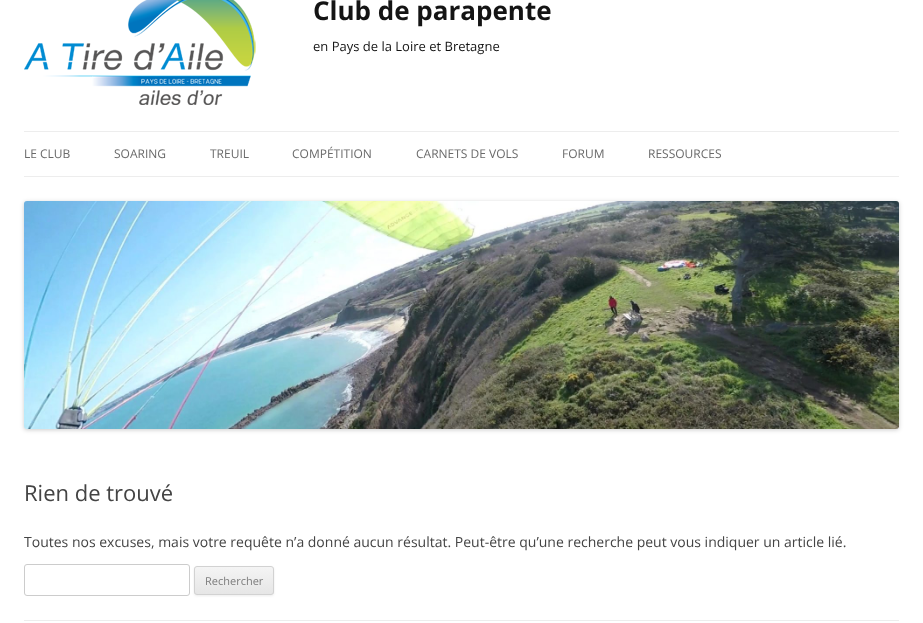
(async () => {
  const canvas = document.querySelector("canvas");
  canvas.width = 923;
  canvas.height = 623;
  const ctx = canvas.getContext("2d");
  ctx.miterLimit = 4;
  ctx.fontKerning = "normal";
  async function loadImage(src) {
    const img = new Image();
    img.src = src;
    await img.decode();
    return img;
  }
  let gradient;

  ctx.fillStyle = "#ffffff";
  ctx.fillRect(0, 0, 923, 623);
  ctx.drawImage(await loadImage("img/1.png"), 24, 0, 232, 105);
  ctx.fillStyle = "#ededed";
  ctx.fillRect(24, 131, 875, 1);
  ctx.fillRect(24, 176, 875, 1);
  ctx.fillStyle = "rgba(0, 0, 0, 0.2)";
  ctx.filter = "blur(2px)";
  ctx.beginPath();
  ctx.roundRect(24, 202, 875, 228, 3);
  ctx.fill();
  ctx.filter = "none";
  ctx.drawImage(await loadImage("img/2.png"), 24, 201, 875, 228);
  ctx.fillStyle = "#ededed";
  ctx.fillRect(24, 620, 875, 1);
  ctx.beginPath();
  ctx.roundRect(24.5, 564.5, 165, 31, 2.5);
  ctx.strokeStyle = "#cccccc";
  ctx.stroke();
  ctx.fillStyle = "rgba(64, 64, 64, 0.1)";
  ctx.filter = "blur(1px)";
  ctx.beginPath();
  ctx.roundRect(194, 567, 80, 29, 3);
  ctx.fill();
  ctx.filter = "none";
  ctx.save();
  ctx.beginPath();
  ctx.roundRect(194, 566, 80, 29, 3);
  ctx.clip();
  gradient = ctx.createLinearGradient(234, 567, 234, 594);
  gradient.addColorStop(0, "#f4f4f4");
  gradient.addColorStop(1, "#e6e6e6");
  ctx.fillStyle = gradient;
  ctx.fillRect(194, 567, 80, 27);
  ctx.restore();
  ctx.beginPath();
  ctx.roundRect(194.5, 566.5, 79, 28, 2.5);
  ctx.strokeStyle = "#d2d2d2";
  ctx.stroke();
  ctx.font = "bold 26px Open Sans";
  ctx.fillStyle = "#141414";
  ctx.fillText("Club de parapente", 313, 20);
  ctx.font = "13px Open Sans";
  ctx.fillText("en Pays de la Loire et Bretagne", 313, 51);
  ctx.font = "12px Open Sans";
  ctx.fillStyle = "#6a6a6a";
  for (const [text, x, y] of [
    ["LE CLUB", 24, 158],
    ["SOARING", 114, 158],
    ["TREUIL", 210, 158],
    ["COMPÉTITION", 292, 158],
    ["CARNETS DE VOLS", 416, 158],
    ["FORUM", 562, 158],
    ["RESSOURCES", 648, 158],
  ]) {
    ctx.fillText(text, x, y);
  }
  ctx.font = "22px Open Sans";
  ctx.fillStyle = "#444444";
  ctx.fillText("Rien de trouvé", 24, 501);
  ctx.font = "14px Open Sans";
  ctx.fillText("Toutes nos excuses, mais votre requête n’a donné aucun résultat. Peut-être qu’une recherche peut vous indiquer un article lié.", 24, 547);
  ctx.font = "11px Open Sans";
  ctx.fillStyle = "#7c7c7c";
  ctx.fillText("Rechercher", 205, 585);
})();
